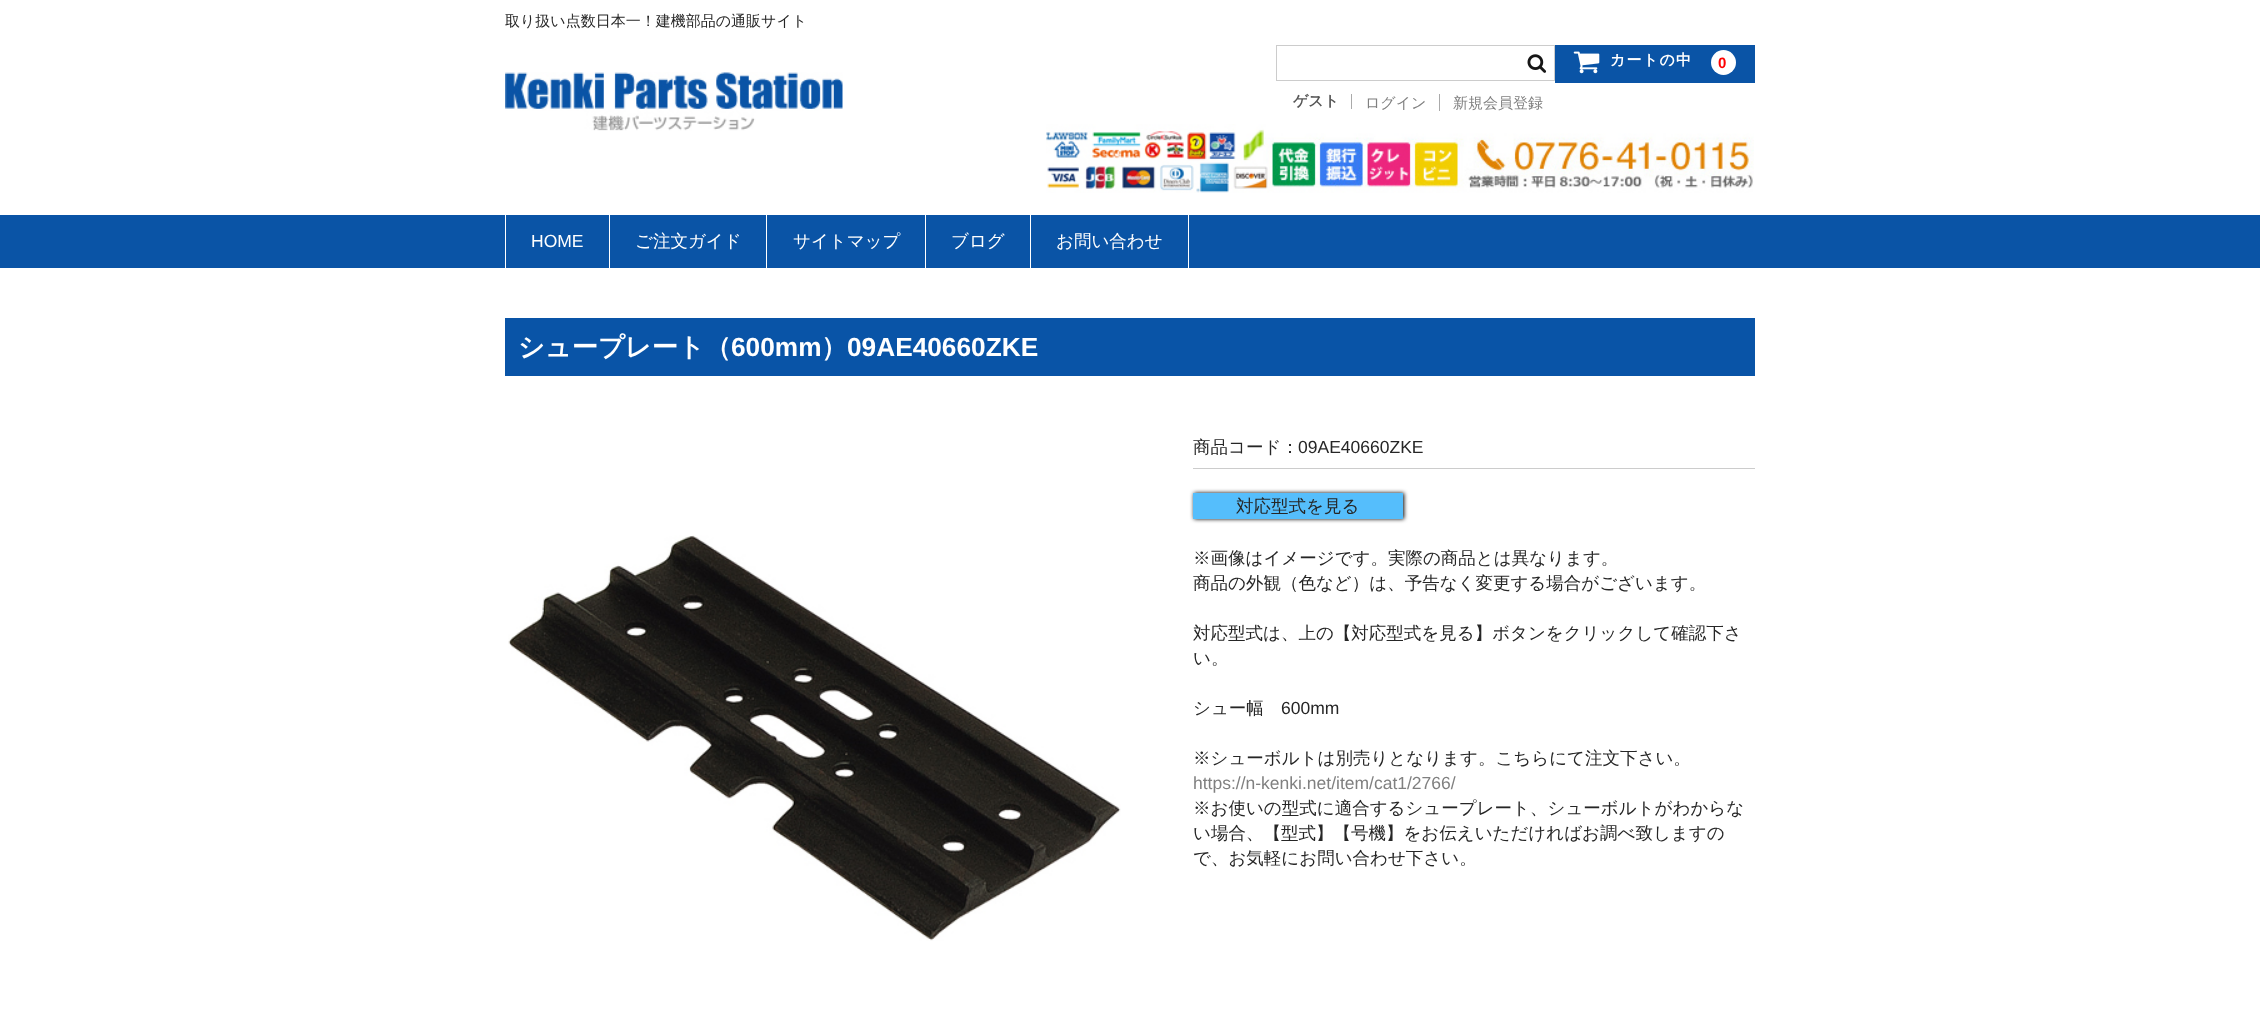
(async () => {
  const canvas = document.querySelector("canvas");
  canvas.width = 2260;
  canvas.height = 1014;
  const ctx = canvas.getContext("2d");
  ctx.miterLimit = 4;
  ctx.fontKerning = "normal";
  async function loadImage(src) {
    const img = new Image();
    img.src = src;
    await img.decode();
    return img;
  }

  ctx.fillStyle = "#ffffff";
  ctx.fillRect(0, 0, 2260, 1014);
  ctx.drawImage(await loadImage("img/1.png"), 505, 72, 338, 59);
  ctx.strokeStyle = "#cccccc";
  ctx.strokeRect(1276.5, 45.5, 278, 35);
  ctx.drawImage(await loadImage("img/2.png"), 1527, 54, 20, 19);
  ctx.fillStyle = "#0a54a6";
  ctx.fillRect(1555, 45, 200, 38);
  ctx.drawImage(await loadImage("img/3.png"), 1573, 51, 27, 23);
  ctx.fillStyle = "#ffffff";
  ctx.beginPath();
  ctx.arc(1723.5, 62.5, 12.5, 0, Math.PI * 2);
  ctx.fill();
  ctx.fillStyle = "#aaaaaa";
  ctx.fillRect(1351, 94, 1, 15);
  ctx.fillRect(1439, 94, 1, 17);
  ctx.drawImage(await loadImage("img/4.png"), 1046, 124, 708, 69);
  for (const [x, y, w, h, color] of [
    [0, 215, 2260, 53, "#0a54a6"],
    [609, 215, 1, 53, "#ffffff"],
    [505, 215, 1, 53, "#ffffff"],
    [766, 215, 1, 53, "#ffffff"],
    [925, 215, 1, 53, "#ffffff"],
    [1030, 215, 1, 53, "#ffffff"],
    [1188, 215, 1, 53, "#ffffff"],
    [505, 318, 1250, 58, "#0954a7"],
  ]) {
    ctx.fillStyle = color;
    ctx.fillRect(x, y, w, h);
  }
  ctx.drawImage(await loadImage("img/5.png"), 508, 535, 613, 406);
  ctx.fillStyle = "#cccccc";
  ctx.fillRect(1193, 468, 562, 1);
  ctx.fillStyle = "#000000";
  ctx.filter = "blur(2px)";
  ctx.beginPath();
  ctx.rect(1194, 493, 210, 26);
  ctx.fill();
  ctx.filter = "none";
  ctx.fillStyle = "#55befc";
  ctx.fillRect(1193, 493, 210, 26);
  ctx.font = "500 15px WenQuanYi Zen Hei";
  ctx.fillStyle = "#262626";
  ctx.fillText("取り扱い点数日本一！建機部品の通販サイト", 505, 26);
  ctx.letterSpacing = "1.25px";
  ctx.font = "bold 15px WenQuanYi Zen Hei";
  ctx.fillStyle = "#ffffff";
  ctx.fillText("カートの中", 1610, 65);
  ctx.font = "bold 15px Liberation Sans";
  ctx.fillStyle = "#ff0000";
  ctx.fillText("0", 1718, 68);
  ctx.letterSpacing = "0px";
  ctx.font = "bold 15px WenQuanYi Zen Hei";
  ctx.fillStyle = "#565656";
  ctx.fillText("ゲスト", 1293, 106);
  ctx.font = "500 15px WenQuanYi Zen Hei";
  ctx.fillStyle = "#808080";
  ctx.fillText("ログイン", 1365, 108);
  ctx.fillText("新規会員登録", 1453, 108);
  ctx.font = "17.5px Liberation Sans";
  ctx.fillStyle = "#ffffff";
  ctx.fillText("HOME", 531, 247);
  ctx.font = "500 17.5px WenQuanYi Zen Hei";
  for (const [text, x, y] of [
    ["ご注文ガイド", 635, 247],
    ["サイトマップ", 793, 247],
    ["ブログ", 951, 247],
    ["お問い合わせ", 1056, 247],
  ]) {
    ctx.fillText(text, x, y);
  }
  ctx.font = "bold 26.25px WenQuanYi Zen Hei";
  ctx.fillText("シュープレート（", 518, 356);
  ctx.font = "bold 26.25px Liberation Sans";
  ctx.fillText("600mm", 731, 356);
  ctx.font = "bold 26.25px WenQuanYi Zen Hei";
  ctx.fillText("）", 821, 356);
  ctx.font = "bold 26.25px Liberation Sans";
  ctx.fillText("09AE40660ZKE", 847, 356);
  ctx.font = "500 17.5px WenQuanYi Zen Hei";
  ctx.fillStyle = "#262626";
  ctx.fillText("商品コード：", 1193, 453);
  ctx.font = "17.5px Liberation Sans";
  ctx.fillText("09AE40660ZKE", 1298, 453);
  ctx.font = "500 17.5px WenQuanYi Zen Hei";
  for (const [text, x, y] of [
    ["対応型式を見る", 1236, 512],
    ["※画像はイメージです。実際の商品とは異なります。", 1193, 564],
    ["商品の外観（色など）は、予告なく変更する場合がございます。", 1193, 589],
    ["対応型式は、上の【対応型式を見る】ボタンをクリックして確認下さ", 1193, 639],
    ["い。", 1193, 664],
    ["シュー幅", 1193, 714],
  ]) {
    ctx.fillText(text, x, y);
  }
  ctx.font = "17.5px Liberation Sans";
  ctx.fillText("600mm", 1281, 714);
  ctx.font = "500 17.5px WenQuanYi Zen Hei";
  ctx.fillText("※シューボルトは別売りとなります。こちらにて注文下さい。", 1193, 764);
  ctx.font = "17.5px Liberation Sans";
  ctx.fillStyle = "#808080";
  ctx.fillText("https://n-kenki.net/item/cat1/2766/", 1193, 789);
  ctx.font = "500 17.5px WenQuanYi Zen Hei";
  ctx.fillStyle = "#262626";
  for (const [text, x, y] of [
    ["※お使いの型式に適合するシュープレート、シューボルトがわからな", 1193, 814],
    ["い場合、【型式】【号機】をお伝えいただければお調べ致しますの", 1193, 839],
    ["で、お気軽にお問い合わせ下さい。", 1193, 864],
  ]) {
    ctx.fillText(text, x, y);
  }
})();
